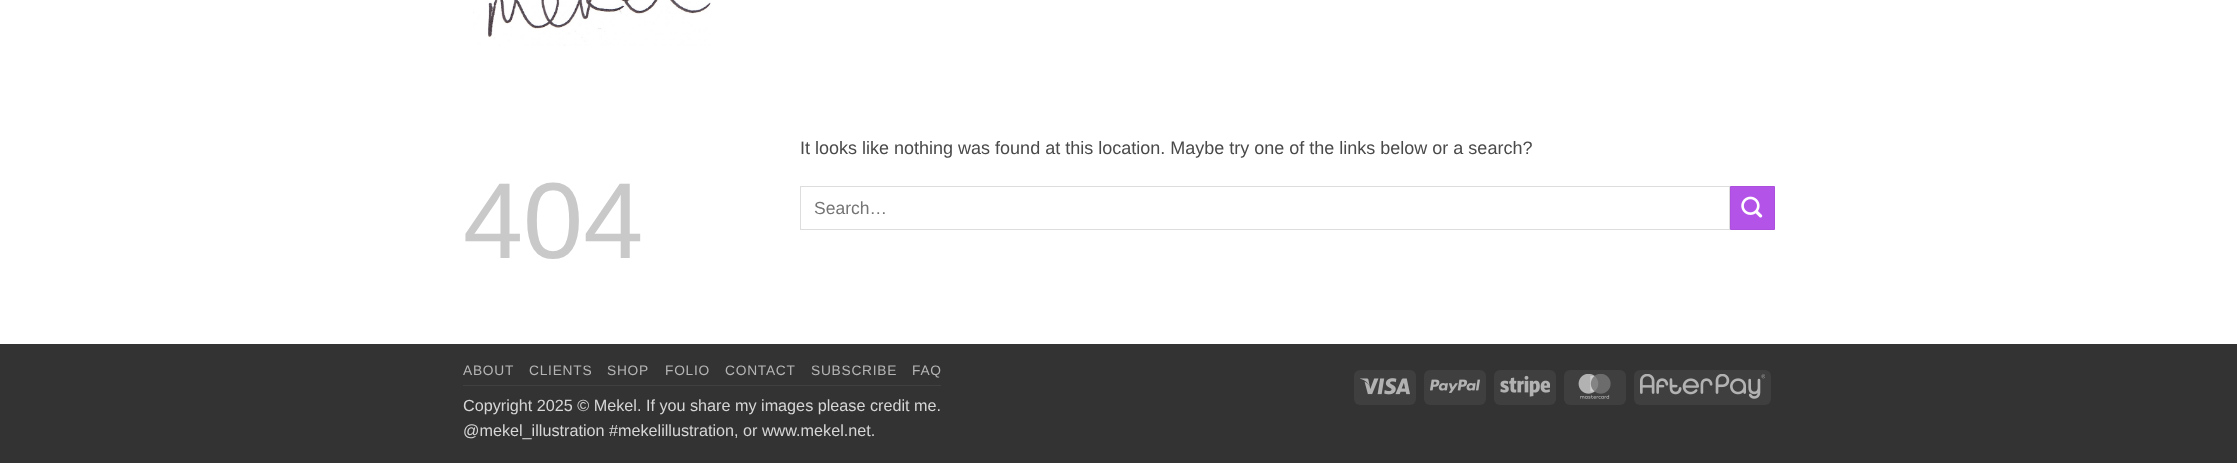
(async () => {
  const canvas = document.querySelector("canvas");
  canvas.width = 2237;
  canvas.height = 463;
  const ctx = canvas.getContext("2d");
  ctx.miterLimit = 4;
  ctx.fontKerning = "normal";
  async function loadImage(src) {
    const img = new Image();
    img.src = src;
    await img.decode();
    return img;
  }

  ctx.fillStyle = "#ffffff";
  ctx.fillRect(0, 0, 2237, 463);
  ctx.drawImage(await loadImage("img/1.png"), 473, 0, 238, 46);
  ctx.strokeStyle = "#dddddd";
  ctx.strokeRect(800.5, 186.5, 929, 43);
  ctx.fillStyle = "#b453e8";
  ctx.beginPath();
  ctx.rect(1730.5, 186.5, 44, 43);
  ctx.fill();
  ctx.strokeStyle = "#ab4fdc";
  ctx.stroke();
  ctx.drawImage(await loadImage("img/2.png"), 1741, 196, 22, 22);
  ctx.fillStyle = "#333333";
  ctx.fillRect(0, 344, 2237, 119);
  ctx.fillStyle = "#404040";
  ctx.fillRect(463, 385, 478, 1);
  ctx.fillStyle = "#3f3f3f";
  ctx.beginPath();
  ctx.roundRect(1354, 370, 62, 35, 6);
  ctx.fill();
  ctx.drawImage(await loadImage("img/3.png"), 1360, 378, 50, 17);
  ctx.beginPath();
  ctx.roundRect(1424, 370, 62, 35, 6);
  ctx.fill();
  ctx.drawImage(await loadImage("img/4.png"), 1430, 379, 50, 14);
  ctx.beginPath();
  ctx.roundRect(1494, 370, 62, 35, 6);
  ctx.fill();
  ctx.drawImage(await loadImage("img/5.png"), 1500, 375, 50, 22);
  ctx.beginPath();
  ctx.roundRect(1564, 370, 62, 35, 6);
  ctx.fill();
  ctx.drawImage(await loadImage("img/6.png"), 1578, 374, 33, 25);
  ctx.beginPath();
  ctx.roundRect(1634, 370, 137, 35, 6);
  ctx.fill();
  ctx.drawImage(await loadImage("img/7.png"), 1640, 374, 125, 25);
  ctx.font = "108px Liberation Sans";
  ctx.fillStyle = "#c9c9c9";
  ctx.fillText("404", 463, 258);
  ctx.font = "18px Liberation Sans";
  ctx.fillStyle = "#4a4a4a";
  ctx.fillText("It looks like nothing was found at this location. Maybe try one of the links below or a search?", 800, 154);
  ctx.font = "17.5px Liberation Sans";
  ctx.fillStyle = "#757575";
  ctx.fillText("Search…", 814, 214);
  ctx.letterSpacing = "0.75px";
  ctx.font = "13.75px Liberation Sans";
  ctx.fillStyle = "#b5b5b5";
  for (const [text, x, y] of [
    ["ABOUT", 463, 375],
    ["CLIENTS", 529, 375],
    ["SHOP", 607, 375],
    ["FOLIO", 665, 375],
    ["CONTACT", 725, 375],
    ["SUBSCRIBE", 811, 375],
    ["FAQ", 912, 375],
  ]) {
    ctx.fillText(text, x, y);
  }
  ctx.letterSpacing = "0px";
  ctx.font = "16.2px Liberation Sans";
  ctx.fillStyle = "#d6d6d6";
  ctx.fillText("Copyright 2025 © Mekel. If you share my images please credit me.", 463, 411);
  ctx.fillText("@mekel_illustration #mekelillustration, or www.mekel.net.", 463, 436);
})();
